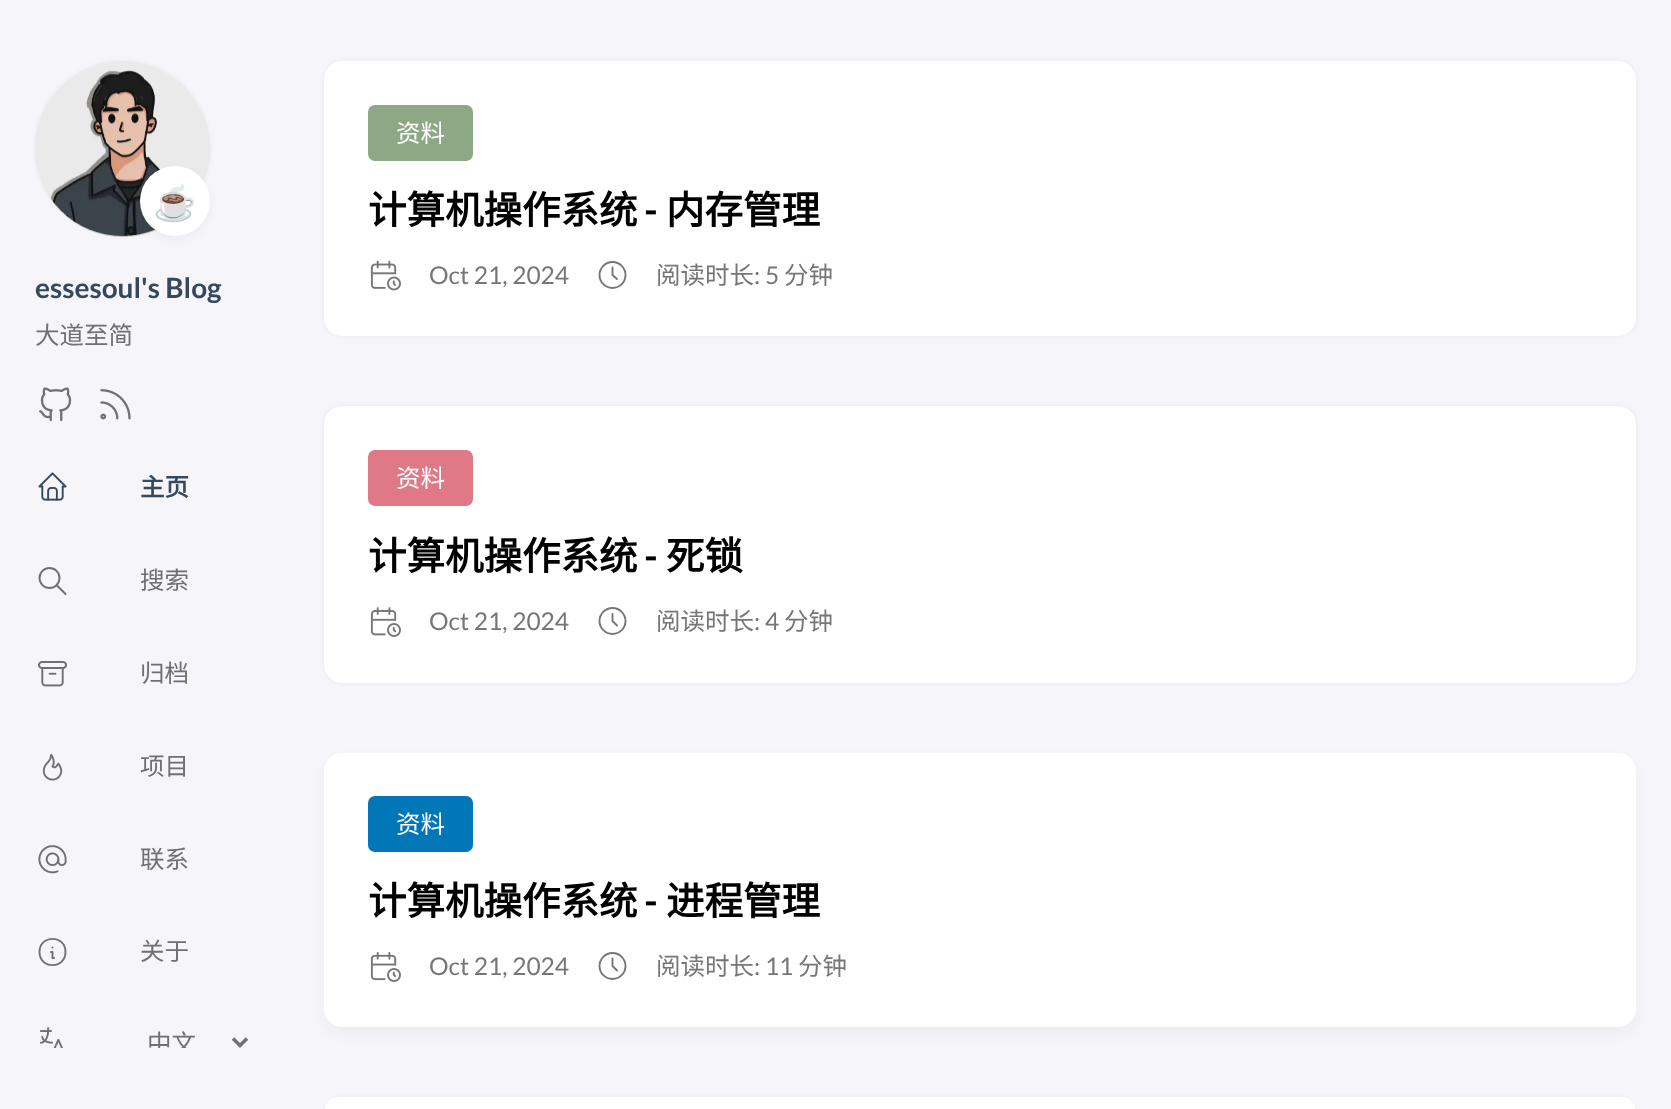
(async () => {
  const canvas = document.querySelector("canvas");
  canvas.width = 1671;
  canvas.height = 1109;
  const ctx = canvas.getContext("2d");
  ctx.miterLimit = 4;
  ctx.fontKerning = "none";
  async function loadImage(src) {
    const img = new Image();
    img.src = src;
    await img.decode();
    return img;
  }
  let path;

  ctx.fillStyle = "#f5f5fa";
  ctx.fillRect(0, 0, 1671, 1109);
  ctx.fillStyle = "rgba(0, 0, 0, 0.06)";
  ctx.filter = "blur(2px)";
  ctx.beginPath();
  ctx.roundRect(35, 61, 175, 175, 87.5);
  ctx.fill();
  ctx.filter = "none";
  ctx.drawImage(await loadImage("img/1.png"), 35, 61, 175, 176);
  ctx.fillStyle = "rgba(0, 0, 0, 0.04)";
  ctx.filter = "blur(5px)";
  ctx.beginPath();
  ctx.roundRect(140, 170, 70, 70, 35);
  ctx.fill();
  ctx.filter = "none";
  ctx.fillStyle = "#ffffff";
  ctx.beginPath();
  ctx.arc(175, 201, 35, 0, Math.PI * 2);
  ctx.fill();
  ctx.drawImage(await loadImage("img/2.png"), 39, 387, 33, 35);
  ctx.drawImage(await loadImage("img/3.png"), 100, 389, 31, 31);
  ctx.drawImage(await loadImage("img/4.png"), 38, 472, 29, 29);
  ctx.beginPath();
  ctx.arc(49.5, 578, 10, 0, Math.PI * 2);
  ctx.strokeStyle = "#707070";
  ctx.lineWidth = 1.9;
  ctx.stroke();
  path = new Path2D("M65.5 594L57 585.5");
  ctx.lineCap = "round";
  ctx.lineJoin = "round";
  ctx.stroke(path);
  ctx.drawImage(await loadImage("img/5.png"), 38, 661, 29, 26);
  ctx.drawImage(await loadImage("img/6.png"), 42, 754, 21, 27);
  ctx.drawImage(await loadImage("img/7.png"), 38, 845, 29, 29);
  path = new Path2D("M39.5 952C39.5 969.5 65.5 969.5 65.5 952C65.5 934.5 39.5 934.5 39.5 952M52.5 947.5H52.5M51 952H52.5V958H54");
  ctx.stroke(path);
  ctx.drawImage(await loadImage("img/8.png"), 39, 1027, 24, 21);
  path = new Path2D("M233 1038.5L240 1045.5L247 1038.5");
  ctx.lineWidth = 3.5;
  ctx.lineCap = "butt";
  ctx.lineJoin = "miter";
  ctx.stroke(path);
  ctx.fillStyle = "rgba(0, 0, 0, 0.06)";
  ctx.filter = "blur(2px)";
  ctx.beginPath();
  ctx.roundRect(324, 61, 1312, 275, 18);
  ctx.fill();
  ctx.filter = "none";
  ctx.fillStyle = "#ffffff";
  ctx.beginPath();
  ctx.roundRect(324, 61, 1312, 275, 18);
  ctx.fill();
  ctx.fillStyle = "#8ea885";
  ctx.beginPath();
  ctx.roundRect(368, 105, 105, 56, 7);
  ctx.fill();
  ctx.drawImage(await loadImage("img/9.png"), 370, 260, 31, 31);
  ctx.beginPath();
  ctx.arc(612.5, 275, 13, 0, Math.PI * 2);
  ctx.strokeStyle = "#767676";
  ctx.lineWidth = 1.9;
  ctx.stroke();
  path = new Path2D("M612.5 267.5V275L617 279");
  ctx.lineCap = "round";
  ctx.lineJoin = "round";
  ctx.stroke(path);
  ctx.fillStyle = "rgba(0, 0, 0, 0.06)";
  ctx.filter = "blur(2px)";
  ctx.beginPath();
  ctx.roundRect(324, 406, 1312, 277, 18);
  ctx.fill();
  ctx.filter = "none";
  ctx.fillStyle = "#ffffff";
  ctx.beginPath();
  ctx.roundRect(324, 406, 1312, 277, 18);
  ctx.fill();
  ctx.fillStyle = "#df7988";
  ctx.beginPath();
  ctx.roundRect(368, 450, 105, 56, 7);
  ctx.fill();
  ctx.drawImage(await loadImage("img/10.png"), 370, 607, 31, 30);
  ctx.beginPath();
  ctx.arc(612.5, 621, 13, 0, Math.PI * 2);
  ctx.stroke();
  path = new Path2D("M612.5 614V621L617 625.5");
  ctx.stroke(path);
  ctx.fillStyle = "rgba(0, 0, 0, 0.04)";
  ctx.filter = "blur(7px)";
  ctx.beginPath();
  ctx.roundRect(324, 760, 1312, 274, 18);
  ctx.fill();
  ctx.filter = "none";
  ctx.fillStyle = "#ffffff";
  ctx.beginPath();
  ctx.roundRect(324, 753, 1312, 274, 18);
  ctx.fill();
  ctx.fillStyle = "#0177b8";
  ctx.beginPath();
  ctx.roundRect(368, 796, 105, 56, 7);
  ctx.fill();
  ctx.drawImage(await loadImage("img/11.png"), 370, 951, 31, 31);
  ctx.beginPath();
  ctx.arc(612.5, 966, 13, 0, Math.PI * 2);
  ctx.stroke();
  path = new Path2D("M612.5 958.5V966L617 970.5");
  ctx.stroke(path);
  ctx.fillStyle = "rgba(0, 0, 0, 0.06)";
  ctx.filter = "blur(2px)";
  ctx.beginPath();
  ctx.roundRect(324, 1097, 1312, 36, 18);
  ctx.fill();
  ctx.filter = "none";
  ctx.fillStyle = "#ffffff";
  ctx.beginPath();
  ctx.roundRect(324, 1097, 1312, 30, 18);
  ctx.fill();
  ctx.font = "35px Noto Color Emoji";
  ctx.fillStyle = "#000000";
  ctx.fillText("☕", 153, 215);
  ctx.font = "bold 28px Lato";
  ctx.fillStyle = "#34495e";
  ctx.fillText("essesoul's Blog", 35, 298);
  ctx.font = "24.5px Noto Sans CJK SC";
  ctx.fillStyle = "#707070";
  ctx.fillText("大道至简", 35, 344);
  ctx.font = "bold 24.5px Noto Sans CJK SC";
  ctx.fillStyle = "#34495e";
  ctx.fillText("主页", 140, 496);
  ctx.font = "24.5px Noto Sans CJK SC";
  ctx.fillStyle = "#707070";
  for (const [text, x, y] of [
    ["搜索", 140, 589],
    ["归档", 140, 682],
    ["项目", 140, 775],
    ["联系", 140, 868],
    ["关于", 140, 960],
  ]) {
    ctx.fillText(text, x, y);
  }
  ctx.save();
  ctx.beginPath();
  ctx.rect(147, 1026, 79, 22);
  ctx.clip();
  ctx.fillText("中文", 147, 1052);
  ctx.restore();
  ctx.fillStyle = "#ffffff";
  ctx.fillText("资料", 396, 142);
  ctx.font = "bold 38.5px Noto Sans CJK SC";
  ctx.fillStyle = "#000000";
  ctx.fillText("计算机操作系统", 368, 224);
  ctx.font = "bold 38.5px Lato";
  ctx.fillText("-", 644, 224);
  ctx.font = "bold 38.5px Noto Sans CJK SC";
  ctx.fillText("内存管理", 666, 224);
  ctx.font = "24.5px Lato";
  ctx.fillStyle = "#767676";
  ctx.fillText("Oct 21, 2024", 429, 284);
  ctx.font = "24.5px Noto Sans CJK SC";
  ctx.fillText("阅读时长", 656, 284);
  ctx.font = "24.5px Lato";
  ctx.fillText(": 5", 754, 284);
  ctx.font = "24.5px Noto Sans CJK SC";
  ctx.fillText("分钟", 784, 284);
  ctx.fillStyle = "#ffffff";
  ctx.fillText("资料", 396, 487);
  ctx.font = "bold 38.5px Noto Sans CJK SC";
  ctx.fillStyle = "#000000";
  ctx.fillText("计算机操作系统", 368, 570);
  ctx.font = "bold 38.5px Lato";
  ctx.fillText("-", 644, 570);
  ctx.font = "bold 38.5px Noto Sans CJK SC";
  ctx.fillText("死锁", 666, 570);
  ctx.font = "24.5px Lato";
  ctx.fillStyle = "#767676";
  ctx.fillText("Oct 21, 2024", 429, 630);
  ctx.font = "24.5px Noto Sans CJK SC";
  ctx.fillText("阅读时长", 656, 630);
  ctx.font = "24.5px Lato";
  ctx.fillText(": 4", 754, 630);
  ctx.font = "24.5px Noto Sans CJK SC";
  ctx.fillText("分钟", 784, 630);
  ctx.fillStyle = "#ffffff";
  ctx.fillText("资料", 396, 833);
  ctx.font = "bold 38.5px Noto Sans CJK SC";
  ctx.fillStyle = "#000000";
  ctx.fillText("计算机操作系统", 368, 915);
  ctx.font = "bold 38.5px Lato";
  ctx.fillText("-", 644, 915);
  ctx.font = "bold 38.5px Noto Sans CJK SC";
  ctx.fillText("进程管理", 666, 915);
  ctx.font = "24.5px Lato";
  ctx.fillStyle = "#767676";
  ctx.fillText("Oct 21, 2024", 429, 975);
  ctx.font = "24.5px Noto Sans CJK SC";
  ctx.fillText("阅读时长", 656, 975);
  ctx.font = "24.5px Lato";
  ctx.fillText(": 11", 754, 975);
  ctx.font = "24.5px Noto Sans CJK SC";
  ctx.fillText("分钟", 798, 975);
})();
